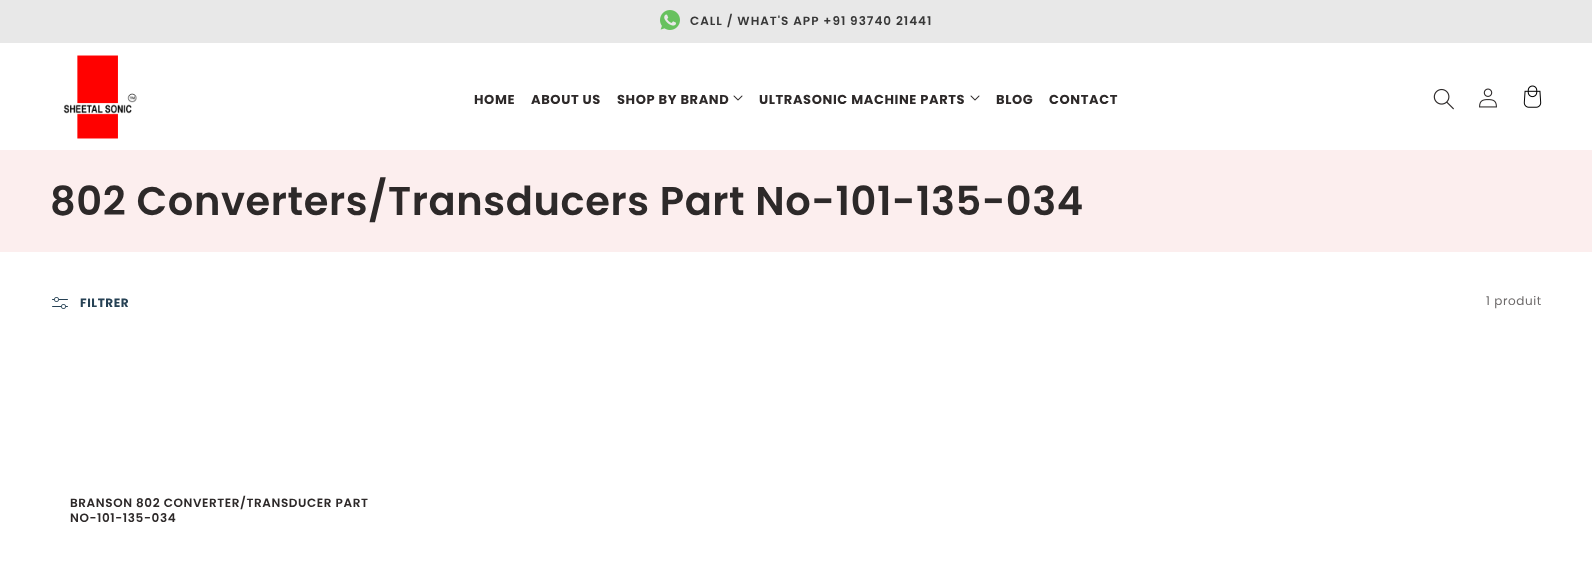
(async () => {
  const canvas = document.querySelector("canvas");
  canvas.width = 1592;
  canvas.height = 568;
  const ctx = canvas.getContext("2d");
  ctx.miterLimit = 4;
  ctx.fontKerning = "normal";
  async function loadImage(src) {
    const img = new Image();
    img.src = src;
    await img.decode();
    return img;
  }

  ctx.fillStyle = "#ffffff";
  ctx.fillRect(0, 0, 1592, 568);
  ctx.fillStyle = "#e8e8e8";
  ctx.fillRect(0, 0, 1592, 43);
  ctx.drawImage(await loadImage("img/1.png"), 660, 10, 20, 20);
  ctx.drawImage(await loadImage("img/2.png"), 63, 55, 74, 84);
  ctx.drawImage(await loadImage("img/3.png"), 733, 95, 10, 6);
  ctx.drawImage(await loadImage("img/3.png"), 970, 95, 10, 6);
  ctx.drawImage(await loadImage("img/4.png"), 1433, 88, 21, 22);
  ctx.drawImage(await loadImage("img/5.png"), 1479, 88, 18, 20);
  ctx.drawImage(await loadImage("img/6.png"), 1523, 85, 19, 23);
  ctx.fillStyle = "#fceeee";
  ctx.fillRect(0, 150, 1592, 102);
  ctx.drawImage(await loadImage("img/7.png"), 52, 297, 16, 12);
  ctx.letterSpacing = "1px";
  ctx.font = "600 12px Poppins";
  ctx.fillStyle = "#383838";
  ctx.fillText("CALL / WHAT'S APP +91 93740 21441", 690, 25);
  ctx.letterSpacing = "0.6px";
  ctx.font = "bold 13px Poppins";
  ctx.fillStyle = "#2d2929";
  for (const [text, x, y] of [
    ["HOME", 474, 104],
    ["ABOUT US", 531, 104],
    ["SHOP BY BRAND", 617, 104],
    ["ULTRASONIC MACHINE PARTS", 759, 104],
    ["BLOG", 996, 104],
    ["CONTACT", 1049, 104],
  ]) {
    ctx.fillText(text, x, y);
  }
  ctx.font = "600 40px Poppins";
  ctx.fillText("802 Converters/Transducers Part No-101-135-034", 50, 215);
  ctx.font = "bold 12px Poppins";
  ctx.fillStyle = "#264154";
  ctx.fillText("FILTRER", 80, 307);
  ctx.font = "12px Poppins";
  ctx.fillStyle = "#6c6969";
  ctx.fillText("1 produit", 1486, 305);
  ctx.font = "600 12px Poppins";
  ctx.fillStyle = "#2d2929";
  ctx.fillText("BRANSON 802 CONVERTER/TRANSDUCER PART", 70, 507);
  ctx.fillText("NO-101-135-034", 70, 522);
})();
